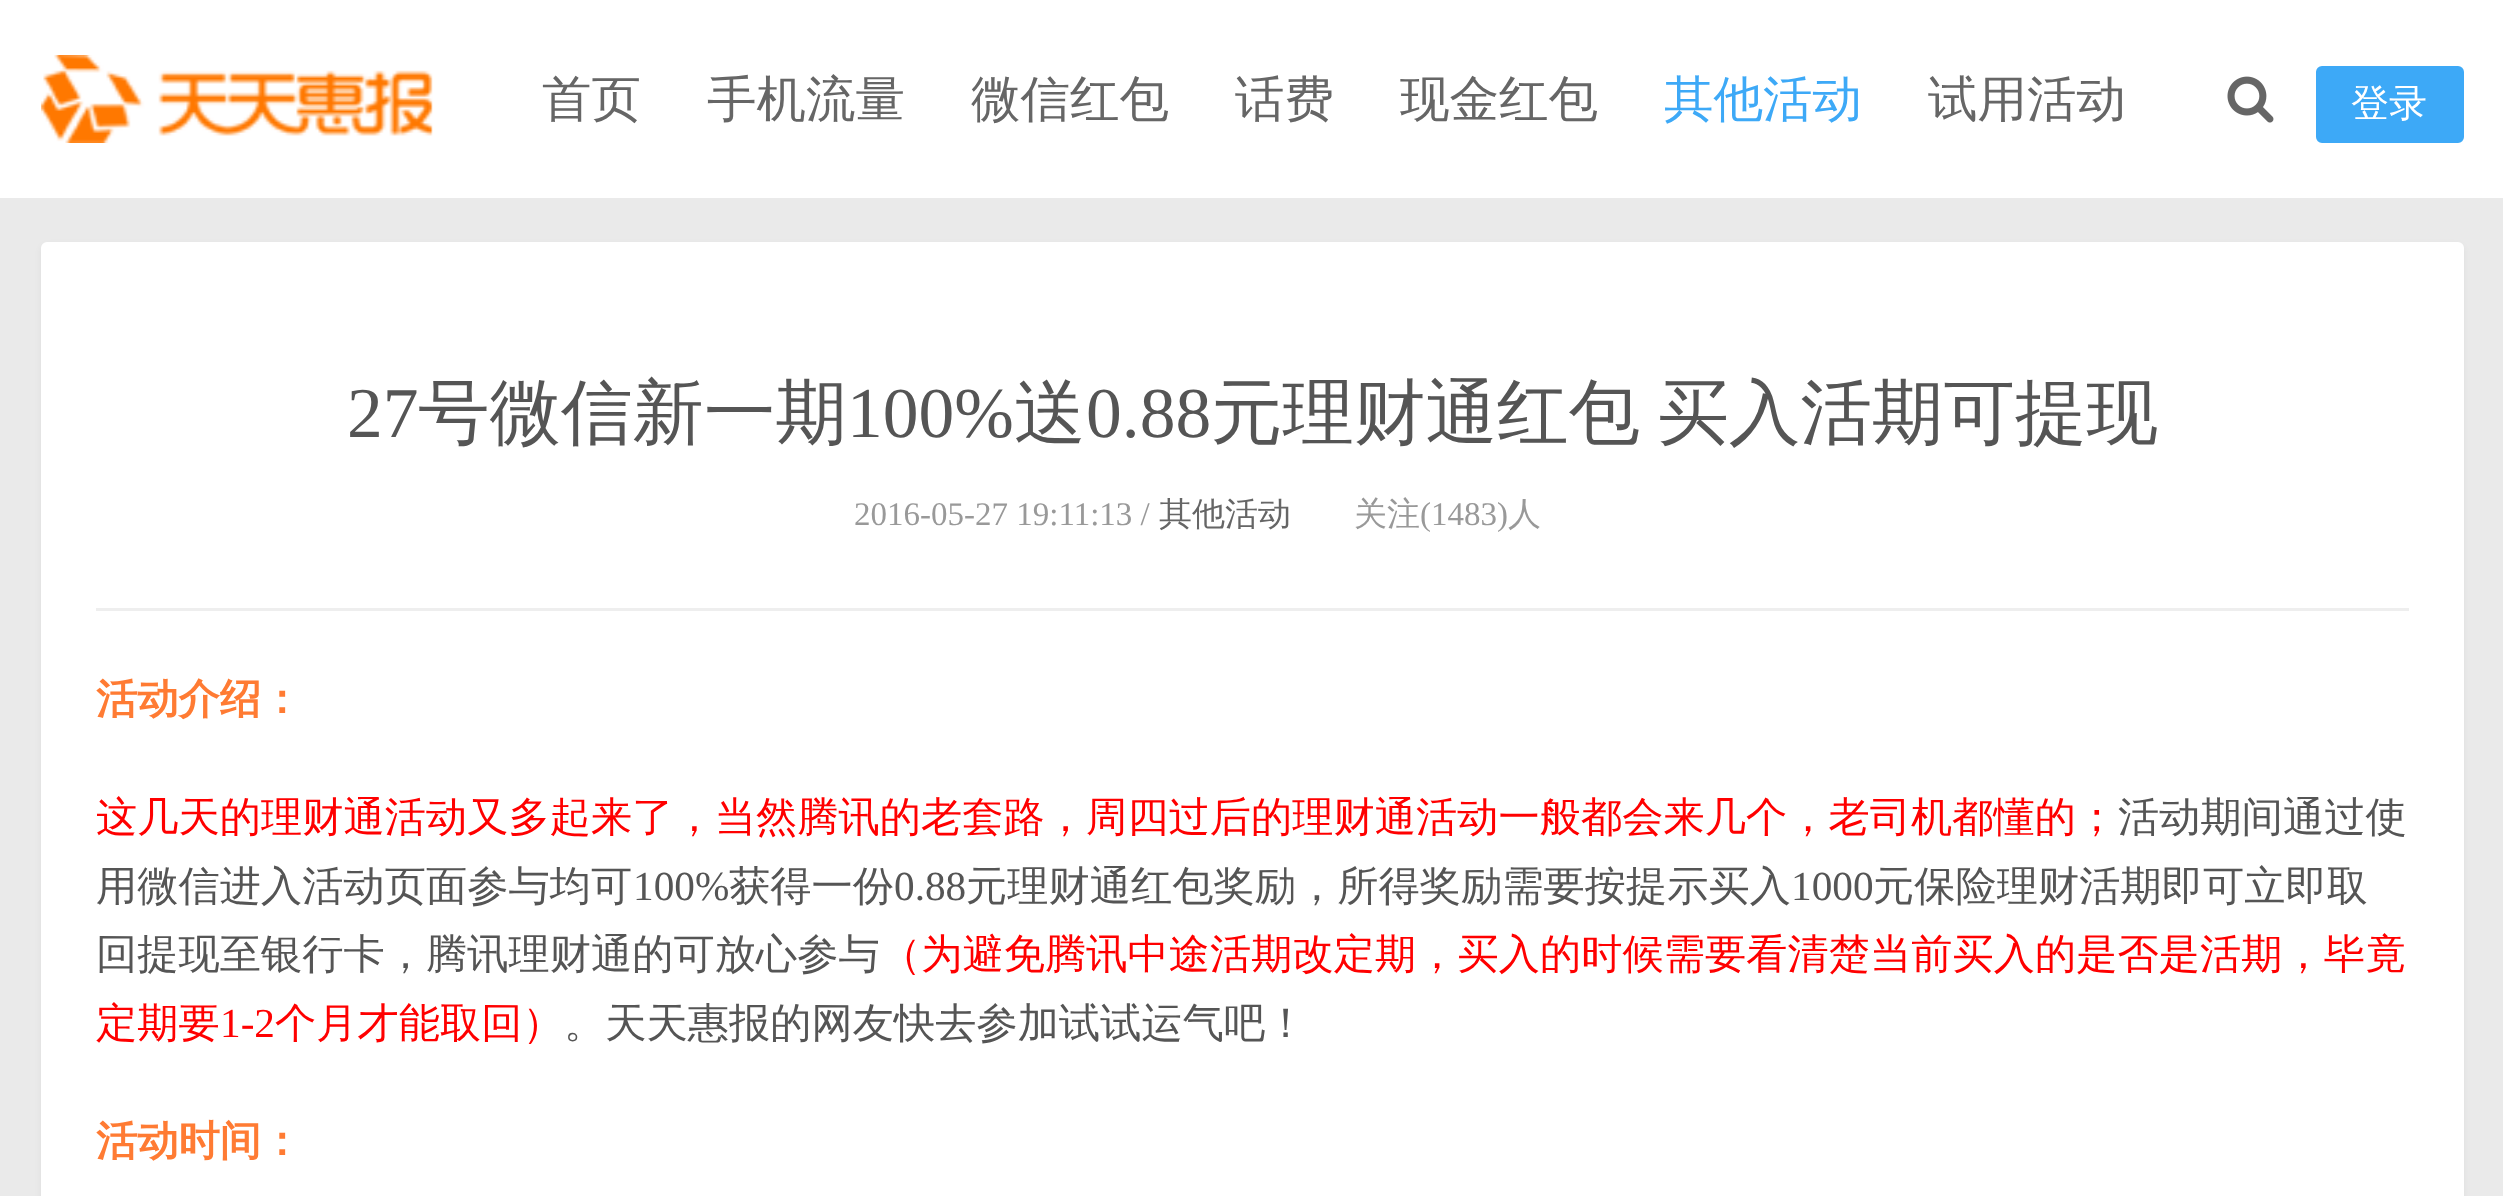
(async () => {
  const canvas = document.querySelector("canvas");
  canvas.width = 2503;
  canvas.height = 1196;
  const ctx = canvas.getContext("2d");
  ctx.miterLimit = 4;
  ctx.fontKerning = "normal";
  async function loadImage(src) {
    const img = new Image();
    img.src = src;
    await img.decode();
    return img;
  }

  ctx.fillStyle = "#eaeaea";
  ctx.fillRect(0, 0, 2503, 1196);
  ctx.fillStyle = "#ffffff";
  ctx.fillRect(0, 0, 2503, 198);
  ctx.drawImage(await loadImage("img/1.png"), 41, 55, 392, 88);
  ctx.drawImage(await loadImage("img/2.png"), 2227, 76, 47, 47);
  ctx.fillStyle = "#3da9f7";
  ctx.beginPath();
  ctx.roundRect(2317.5, 67.5, 145, 74, 4.5);
  ctx.fill();
  ctx.strokeStyle = "#3da9f7";
  ctx.lineWidth = 3;
  ctx.stroke();
  ctx.fillStyle = "rgba(0, 0, 0, 0.05)";
  ctx.filter = "blur(3px)";
  ctx.beginPath();
  ctx.roundRect(41, 245, 2423, 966, 6);
  ctx.fill();
  ctx.filter = "none";
  ctx.fillStyle = "#ffffff";
  ctx.beginPath();
  ctx.roundRect(41, 242, 2423, 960, 6);
  ctx.fill();
  ctx.fillStyle = "#eeeeee";
  ctx.fillRect(96, 608, 2313, 3);
  ctx.font = "500 49.5px WenQuanYi Zen Hei";
  ctx.fillStyle = "#666666";
  for (const [text, x, y] of [
    ["首页", 542, 116],
    ["手机流量", 707, 116],
    ["微信红包", 971, 116],
    ["话费", 1235, 116],
    ["现金红包", 1400, 116],
  ]) {
    ctx.fillText(text, x, y);
  }
  ctx.fillStyle = "#3da9f7";
  ctx.fillText("其他活动", 1664, 116);
  ctx.fillStyle = "#666666";
  ctx.fillText("试用活动", 1928, 116);
  ctx.font = "500 38px WenQuanYi Zen Hei";
  ctx.fillStyle = "#ffffff";
  ctx.fillText("登录", 2351, 116);
  ctx.font = "71.5px Liberation Serif";
  ctx.fillStyle = "#555555";
  ctx.fillText("27", 347, 437);
  ctx.font = "500 71.5px WenQuanYi Zen Hei";
  ctx.fillText("号微信新一期", 418, 437);
  ctx.font = "71.5px Liberation Serif";
  ctx.fillText("100%", 847, 437);
  ctx.font = "500 71.5px WenQuanYi Zen Hei";
  ctx.fillText("送", 1014, 437);
  ctx.font = "71.5px Liberation Serif";
  ctx.fillText("0.88", 1086, 437);
  ctx.wordSpacing = "-4px";
  ctx.font = "500 71.5px WenQuanYi Zen Hei";
  ctx.fillText("元理财通红包 买入活期可提现", 1211, 437);
  ctx.wordSpacing = "0px";
  ctx.font = "33px Liberation Serif";
  ctx.fillStyle = "#999999";
  ctx.fillText("2016-05-27 19:11:13 /", 854, 525);
  ctx.font = "500 33px WenQuanYi Zen Hei";
  ctx.fillStyle = "#666666";
  ctx.fillText("其他活动", 1159, 525);
  ctx.fillStyle = "#999999";
  ctx.fillText("关注", 1354, 525);
  ctx.font = "33px Liberation Serif";
  ctx.fillText("(1483)", 1420, 525);
  ctx.font = "500 33px WenQuanYi Zen Hei";
  ctx.fillText("人", 1508, 525);
  ctx.font = "bold 41.25px WenQuanYi Zen Hei";
  ctx.fillStyle = "#ff7b33";
  ctx.fillText("活动介绍：", 96, 713);
  ctx.font = "500 41.25px WenQuanYi Zen Hei";
  ctx.fillStyle = "#ff0000";
  ctx.fillText("这几天的理财通活动又多起来了，当然腾讯的老套路，周四过后的理财通活动一般都会来几个，老司机都懂的；", 96, 831);
  ctx.fillStyle = "#555555";
  ctx.fillText("活动期间通过使", 2118, 831);
  ctx.fillText("用微信进入活动页面参与均可", 96, 900);
  ctx.font = "41.25px Liberation Serif";
  ctx.fillText("100%", 633, 900);
  ctx.font = "500 41.25px WenQuanYi Zen Hei";
  ctx.fillText("获得一份", 729, 900);
  ctx.font = "41.25px Liberation Serif";
  ctx.fillText("0.88", 894, 900);
  ctx.font = "500 41.25px WenQuanYi Zen Hei";
  ctx.fillText("元理财通红包奖励，所得奖励需要按提示买入", 966, 900);
  ctx.font = "41.25px Liberation Serif";
  ctx.fillText("1000", 1791, 900);
  ctx.font = "500 41.25px WenQuanYi Zen Hei";
  ctx.fillText("元保险理财活期即可立即取", 1873, 900);
  ctx.fillText("回提现至银行卡，腾讯理财通的可放心参与", 96, 968);
  ctx.fillStyle = "#ff0000";
  ctx.fillText("（为避免腾讯中途活期改定期，买入的时候需要看清楚当前买入的是否是活期，毕竟", 880, 968);
  ctx.fillText("定期要", 96, 1037);
  ctx.font = "41.25px Liberation Serif";
  ctx.fillText("1-2", 220, 1037);
  ctx.font = "500 41.25px WenQuanYi Zen Hei";
  ctx.fillText("个月才能取回）", 275, 1037);
  ctx.fillStyle = "#555555";
  ctx.fillText("。天天惠报的网友快去参加试试运气吧！", 564, 1037);
  ctx.font = "bold 41.25px WenQuanYi Zen Hei";
  ctx.fillStyle = "#ff7b33";
  ctx.fillText("活动时间：", 96, 1155);
})();
